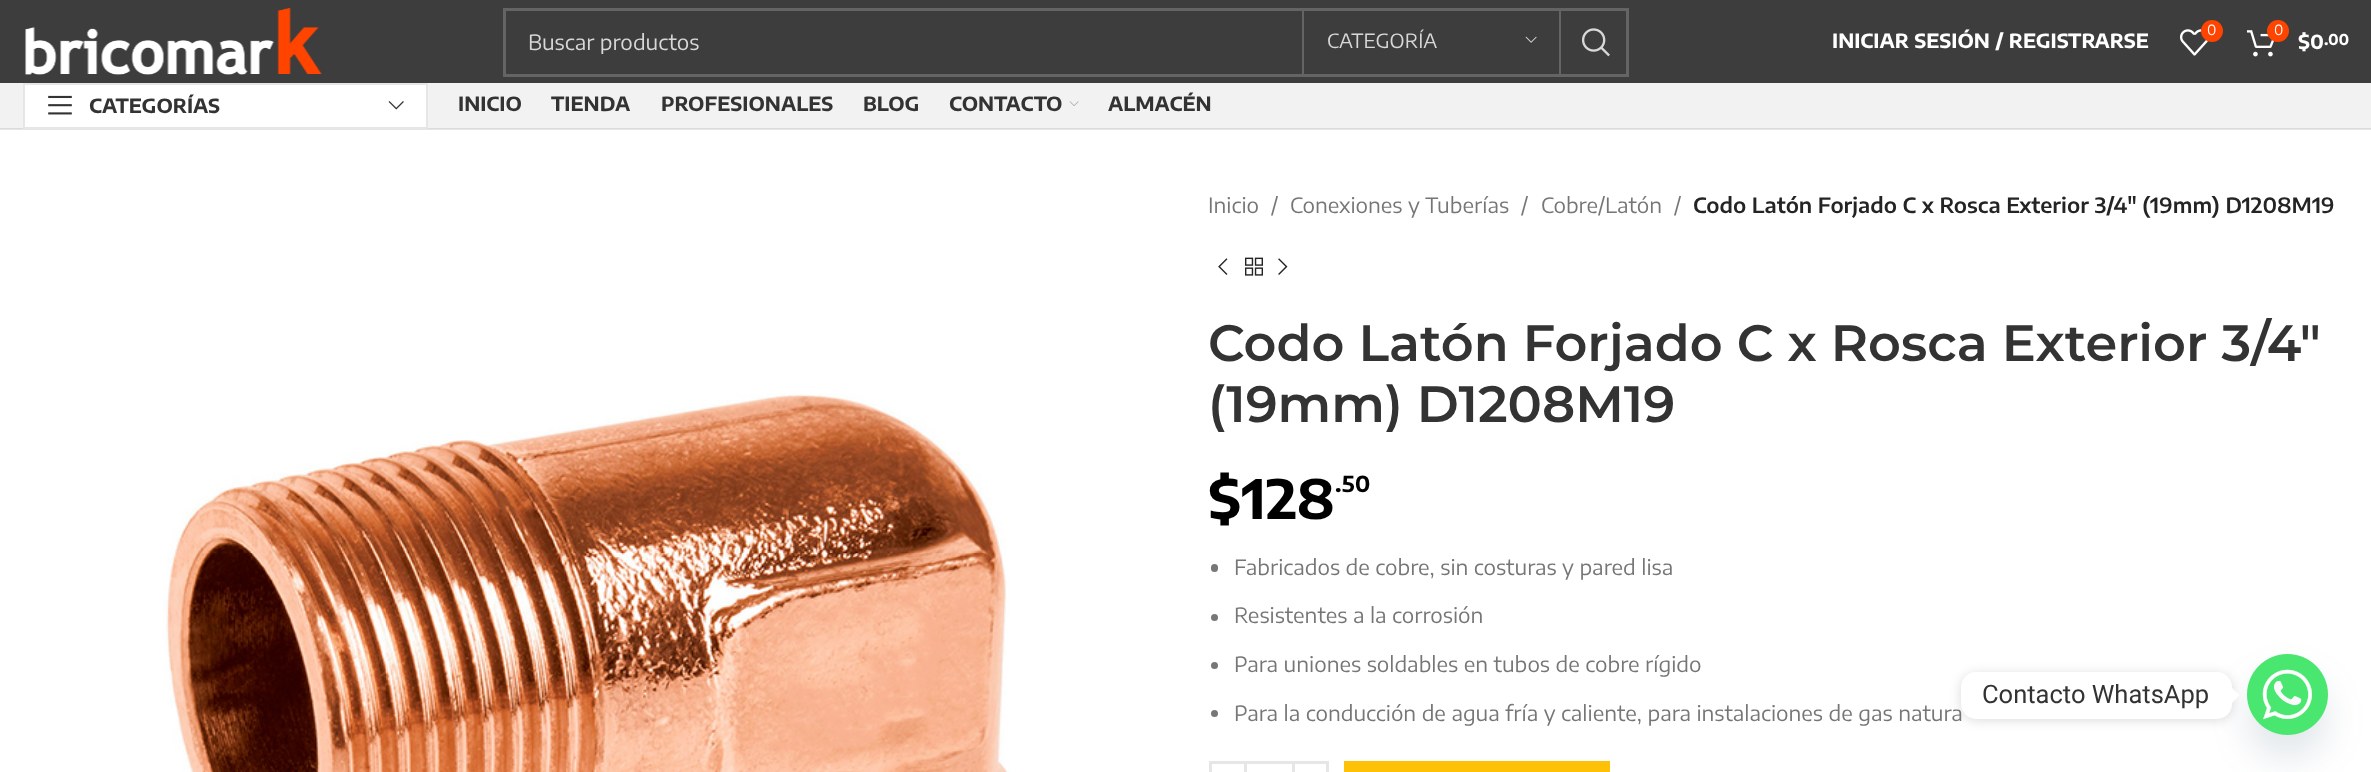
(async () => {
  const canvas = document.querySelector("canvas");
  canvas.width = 2371;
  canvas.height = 772;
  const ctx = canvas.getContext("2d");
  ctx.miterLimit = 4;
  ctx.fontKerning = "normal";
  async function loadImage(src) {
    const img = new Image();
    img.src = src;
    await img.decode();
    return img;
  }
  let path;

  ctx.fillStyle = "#ffffff";
  ctx.fillRect(0, 0, 2371, 772);
  ctx.fillStyle = "#e6e6e6";
  ctx.fillRect(0, 129, 2371, 1);
  ctx.fillStyle = "#3d3d3d";
  ctx.fillRect(0, 0, 2371, 83);
  ctx.drawImage(await loadImage("img/1.png"), 25, 7, 297, 68);
  ctx.strokeStyle = "#646464";
  ctx.lineWidth = 3;
  ctx.strokeRect(504.5, 9.5, 1123, 66);
  ctx.fillStyle = "#646464";
  ctx.fillRect(1559, 11, 2, 63);
  ctx.fillRect(1302, 11, 2, 63);
  ctx.drawImage(await loadImage("img/2.png"), 1525, 36, 12, 7);
  ctx.drawImage(await loadImage("img/3.png"), 1582, 28, 28, 29);
  ctx.drawImage(await loadImage("img/4.png"), 2180, 29, 28, 27);
  ctx.fillStyle = "#ff4400";
  ctx.beginPath();
  ctx.arc(2212, 31, 11, 0, Math.PI * 2);
  ctx.fill();
  ctx.drawImage(await loadImage("img/5.png"), 2247, 30, 27, 27);
  ctx.beginPath();
  ctx.arc(2278, 31, 11, 0, Math.PI * 2);
  ctx.fill();
  ctx.fillStyle = "#f2f2f2";
  ctx.fillRect(0, 83, 2371, 45);
  ctx.fillStyle = "#dbdbdb";
  ctx.fillRect(0, 128, 2371, 1);
  ctx.fillStyle = "#ffffff";
  ctx.beginPath();
  ctx.rect(24, 84, 403, 44);
  ctx.fill();
  ctx.strokeStyle = "#e6e6e6";
  ctx.lineWidth = 2;
  ctx.stroke();
  ctx.drawImage(await loadImage("img/6.png"), 48, 95, 24, 20);
  ctx.drawImage(await loadImage("img/7.png"), 388, 101, 16, 9);
  ctx.drawImage(await loadImage("img/8.png"), 1069, 101, 10, 5);
  ctx.drawImage(await loadImage("img/9.png"), 163, 393, 847, 379);
  ctx.drawImage(await loadImage("img/10.png"), 1218, 258, 10, 17);
  ctx.drawImage(await loadImage("img/11.png"), 1245, 257, 18, 19);
  ctx.drawImage(await loadImage("img/12.png"), 1278, 258, 10, 17);
  ctx.fillStyle = "#777777";
  ctx.beginPath();
  ctx.roundRect(1211, 564, 7, 8, 3.5);
  ctx.fill();
  ctx.beginPath();
  ctx.arc(1214.5, 617.5, 3.5, 0, Math.PI * 2);
  ctx.fill();
  ctx.beginPath();
  ctx.arc(1214.5, 665.5, 3.5, 0, Math.PI * 2);
  ctx.fill();
  ctx.beginPath();
  ctx.arc(1214.5, 713.5, 3.5, 0, Math.PI * 2);
  ctx.fill();
  ctx.lineWidth = 3;
  ctx.strokeRect(1210.5, 762.5, 35, 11);
  ctx.fillStyle = "#e6e6e6";
  ctx.fillRect(1247, 761, 45, 3);
  ctx.strokeRect(1293.5, 762.5, 34, 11);
  ctx.fillStyle = "#ffc107";
  ctx.fillRect(1344, 761, 266, 11);
  ctx.fillStyle = "rgba(73, 104, 126, 0.16)";
  ctx.filter = "blur(18px)";
  ctx.beginPath();
  ctx.roundRect(2247, 678, 81, 81, 40.5);
  ctx.fill();
  ctx.filter = "none";
  ctx.drawImage(await loadImage("img/13.png"), 2247, 654, 81, 81);
  ctx.fillStyle = "rgba(0, 0, 0, 0.15)";
  ctx.filter = "blur(6px)";
  ctx.beginPath();
  ctx.roundRect(1961, 674, 271, 46, 15);
  ctx.fill();
  ctx.filter = "none";
  ctx.fillStyle = "#ffffff";
  ctx.beginPath();
  ctx.roundRect(1961, 672, 271, 47, 15);
  ctx.fill();
  path = new Path2D("M2232 703V688L2239.5 695Z");
  ctx.fill(path);
  ctx.save();
  ctx.beginPath();
  ctx.rect(528, 29, 726, 25);
  ctx.clip();
  ctx.font = "21px Encode Sans Semi Expanded";
  ctx.fillStyle = "#d8d8d8";
  ctx.fillText("Buscar productos", 528, 50);
  ctx.restore();
  ctx.font = "19.5px Encode Sans Semi Expanded";
  ctx.fillStyle = "#d8d8d8";
  ctx.fillText("CATEGORÍA", 1327, 48);
  ctx.font = "bold 19.5px Encode Sans Semi Expanded";
  ctx.fillStyle = "#ffffff";
  ctx.fillText("INICIAR SESIÓN / REGISTRARSE", 1832, 48);
  ctx.font = "14px Encode Sans Semi Expanded";
  ctx.fillText("0", 2207, 35);
  ctx.fillText("0", 2274, 35);
  ctx.font = "bold 19.5px Encode Sans Semi Expanded";
  ctx.fillText("$0", 2298, 49);
  ctx.font = "bold 15px Encode Sans Semi Expanded";
  ctx.fillText(".00", 2324, 45);
  ctx.font = "bold 19.5px Encode Sans Semi Expanded";
  ctx.fillStyle = "#333333";
  for (const [text, x, y] of [
    ["CATEGORÍAS", 89, 113],
    ["INICIO", 458, 111],
    ["TIENDA", 551, 111],
    ["PROFESIONALES", 661, 111],
    ["BLOG", 863, 111],
    ["CONTACTO", 949, 111],
    ["ALMACÉN", 1108, 111],
  ]) {
    ctx.fillText(text, x, y);
  }
  ctx.font = "21px Encode Sans Semi Expanded";
  ctx.fillStyle = "#767676";
  for (const [text, x, y] of [
    ["Inicio", 1208, 213],
    ["/", 1271, 213],
    ["Conexiones y Tuberías", 1290, 213],
    ["/", 1521, 213],
    ["Cobre/Latón", 1541, 213],
    ["/", 1674, 213],
  ]) {
    ctx.fillText(text, x, y);
  }
  ctx.font = "600 21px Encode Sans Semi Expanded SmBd";
  ctx.fillStyle = "#242424";
  ctx.fillText("Codo Latón Forjado C x Rosca Exterior 3/4″ (19mm) D1208M19", 1693, 213);
  ctx.font = "600 51px Montserrat";
  ctx.fillStyle = "#333333";
  ctx.fillText("Codo Latón Forjado C x Rosca Exterior 3/4″", 1208, 361);
  ctx.fillText("(19mm) D1208M19", 1208, 422);
  ctx.font = "bold 54px Encode Sans Semi Expanded";
  ctx.fillStyle = "#000000";
  ctx.fillText("$128", 1208, 519);
  ctx.font = "bold 22px Encode Sans Semi Expanded";
  ctx.fillText(".50", 1335, 492);
  ctx.font = "21px Encode Sans Semi Expanded";
  ctx.fillStyle = "#767676";
  for (const [text, x, y] of [
    ["Fabricados de cobre, sin costuras y pared lisa", 1234, 575],
    ["Resistentes a la corrosión", 1234, 623],
    ["Para uniones soldables en tubos de cobre rígido", 1234, 672],
    ["Para la conducción de agua fría y caliente, para instalaciones de gas natura", 1234, 721],
  ]) {
    ctx.fillText(text, x, y);
  }
  ctx.font = "25.5px Roboto";
  ctx.fillStyle = "#333333";
  ctx.fillText("Contacto WhatsApp", 1982, 703);
})();
